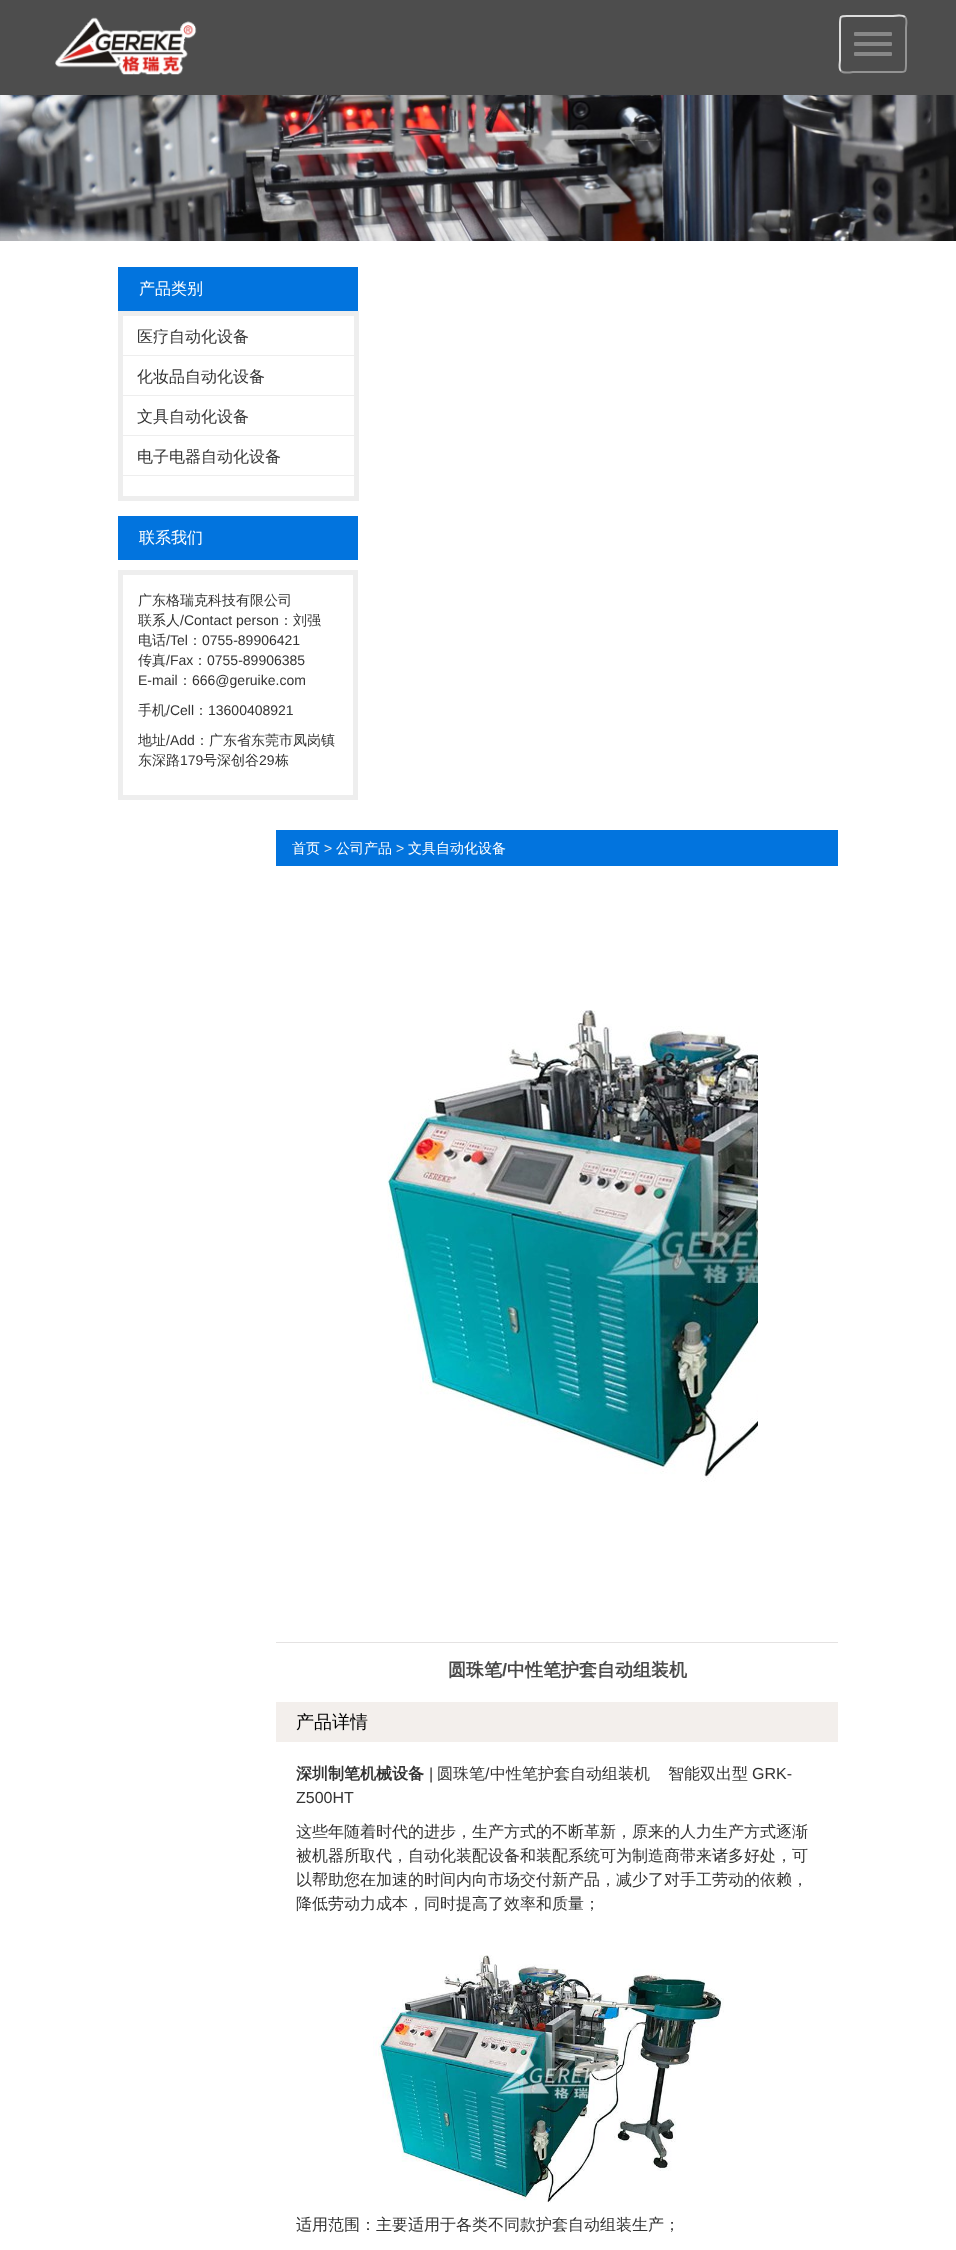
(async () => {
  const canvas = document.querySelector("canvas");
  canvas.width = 956;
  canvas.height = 2250;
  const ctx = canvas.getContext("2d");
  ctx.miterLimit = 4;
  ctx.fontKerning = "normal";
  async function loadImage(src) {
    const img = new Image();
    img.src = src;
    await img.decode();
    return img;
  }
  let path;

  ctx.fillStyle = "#ffffff";
  ctx.fillRect(0, 0, 956, 2250);
  ctx.fillStyle = "#4d4d4d";
  ctx.fillRect(0, 0, 956, 95);
  ctx.drawImage(await loadImage("img/1.png"), 55, 17, 142, 58);
  path = new Path2D("M905 17C907.5 19 906 27 906 27.5V60.5C906 74 907 72 893 72H853C853 72 843.5 73.5 841 71");
  ctx.strokeStyle = "#939393";
  ctx.lineWidth = 2;
  ctx.stroke(path);
  path = new Path2D("M841 71C838.5 69 840 61 840 60.5V27.5C840 14 839 16 853 16H893C893 16 902.5 14.5 905 17");
  ctx.strokeStyle = "#dddddd";
  ctx.stroke(path);
  ctx.fillStyle = "#888888";
  ctx.beginPath();
  ctx.roundRect(854, 32, 38, 4, 1);
  ctx.fill();
  ctx.beginPath();
  ctx.roundRect(854, 42, 38, 4, 1);
  ctx.fill();
  ctx.beginPath();
  ctx.roundRect(854, 52, 38, 4, 1);
  ctx.fill();
  ctx.drawImage(await loadImage("img/2.png"), 0, 95, 956, 146);
  ctx.fillStyle = "#0274de";
  ctx.fillRect(118, 267, 240, 44);
  ctx.strokeStyle = "#eeeeee";
  ctx.lineWidth = 5;
  ctx.strokeRect(120.5, 313.5, 236, 185);
  for (const [x, y, w, h, color] of [
    [123, 355, 231, 1, "#eeeeee"],
    [123, 395, 231, 1, "#eeeeee"],
    [123, 435, 231, 1, "#eeeeee"],
    [123, 475, 231, 1, "#eeeeee"],
    [118, 516, 240, 44, "#0274de"],
  ]) {
    ctx.fillStyle = color;
    ctx.fillRect(x, y, w, h);
  }
  ctx.strokeRect(120.5, 572.5, 235, 225);
  ctx.fillRect(276, 830, 562, 36);
  ctx.drawImage(await loadImage("img/3.png"), 387, 1010, 371, 472);
  ctx.fillStyle = "#e4e2e2";
  ctx.fillRect(276, 1642, 562, 1);
  ctx.fillStyle = "#f3efec";
  ctx.fillRect(276, 1702, 562, 40);
  ctx.drawImage(await loadImage("img/4.png"), 373, 1955, 351, 248);
  ctx.font = "500 16px WenQuanYi Zen Hei";
  ctx.fillStyle = "#ffffff";
  ctx.fillText("产品类别", 139, 294);
  ctx.fillStyle = "#333333";
  for (const [text, x, y] of [
    ["医疗自动化设备", 137, 342],
    ["化妆品自动化设备", 137, 382],
    ["文具自动化设备", 137, 422],
    ["电子电器自动化设备", 137, 462],
  ]) {
    ctx.fillText(text, x, y);
  }
  ctx.fillStyle = "#ffffff";
  ctx.fillText("联系我们", 139, 543);
  ctx.font = "500 14px WenQuanYi Zen Hei";
  ctx.fillStyle = "#333333";
  ctx.fillText("广东格瑞克科技有限公司", 138, 605);
  ctx.fillText("联系人", 138, 625);
  ctx.font = "14px Liberation Sans";
  ctx.fillText("/Contact person", 180, 625);
  ctx.font = "500 14px WenQuanYi Zen Hei";
  ctx.fillText("：刘强", 279, 625);
  ctx.fillText("电话", 138, 645);
  ctx.font = "14px Liberation Sans";
  ctx.fillText("/Tel", 166, 645);
  ctx.font = "500 14px WenQuanYi Zen Hei";
  ctx.fillText("：", 188, 645);
  ctx.font = "14px Liberation Sans";
  ctx.fillText("0755-89906421", 202, 645);
  ctx.font = "500 14px WenQuanYi Zen Hei";
  ctx.fillText("传真", 138, 665);
  ctx.font = "14px Liberation Sans";
  ctx.fillText("/Fax", 166, 665);
  ctx.font = "500 14px WenQuanYi Zen Hei";
  ctx.fillText("：", 193, 665);
  ctx.font = "14px Liberation Sans";
  ctx.fillText("0755-89906385", 207, 665);
  ctx.fillText("E-mail", 138, 685);
  ctx.font = "500 14px WenQuanYi Zen Hei";
  ctx.fillText("：", 178, 685);
  ctx.font = "14px Liberation Sans";
  ctx.fillText("666@geruike.com", 192, 685);
  ctx.font = "500 14px WenQuanYi Zen Hei";
  ctx.fillText("手机", 138, 715);
  ctx.font = "14px Liberation Sans";
  ctx.fillText("/Cell", 166, 715);
  ctx.font = "500 14px WenQuanYi Zen Hei";
  ctx.fillText("：", 194, 715);
  ctx.font = "14px Liberation Sans";
  ctx.fillText("13600408921", 208, 715);
  ctx.font = "500 14px WenQuanYi Zen Hei";
  ctx.fillText("地址", 138, 745);
  ctx.font = "14px Liberation Sans";
  ctx.fillText("/Add", 166, 745);
  ctx.font = "500 14px WenQuanYi Zen Hei";
  ctx.fillText("：广东省东莞市凤岗镇", 195, 745);
  ctx.fillText("东深路", 138, 765);
  ctx.font = "14px Liberation Sans";
  ctx.fillText("179", 180, 765);
  ctx.font = "500 14px WenQuanYi Zen Hei";
  ctx.fillText("号深创谷", 203, 765);
  ctx.font = "14px Liberation Sans";
  ctx.fillText("29", 259, 765);
  ctx.font = "500 14px WenQuanYi Zen Hei";
  ctx.fillText("栋", 275, 765);
  ctx.fillStyle = "#ffffff";
  ctx.fillText("首页", 292, 853);
  ctx.font = "14px Liberation Sans";
  ctx.fillStyle = "#eeeeee";
  ctx.fillText(">", 324, 853);
  ctx.font = "500 14px WenQuanYi Zen Hei";
  ctx.fillStyle = "#ffffff";
  ctx.fillText("公司产品", 336, 853);
  ctx.font = "14px Liberation Sans";
  ctx.fillStyle = "#eeeeee";
  ctx.fillText(">", 396, 853);
  ctx.font = "500 14px WenQuanYi Zen Hei";
  ctx.fillStyle = "#ffffff";
  ctx.fillText("文具自动化设备", 408, 853);
  ctx.font = "bold 18px WenQuanYi Zen Hei";
  ctx.fillStyle = "#4a4a4a";
  ctx.fillText("圆珠笔", 448, 1676);
  ctx.font = "bold 18px Liberation Sans";
  ctx.fillText("/", 502, 1676);
  ctx.font = "bold 18px WenQuanYi Zen Hei";
  ctx.fillText("中性笔护套自动组装机", 507, 1676);
  ctx.font = "500 18px WenQuanYi Zen Hei";
  ctx.fillStyle = "#000000";
  ctx.fillText("产品详情", 296, 1728);
  ctx.font = "bold 16px WenQuanYi Zen Hei";
  ctx.fillStyle = "#333333";
  ctx.fillText("深圳制笔机械设备", 296, 1779);
  ctx.font = "16px Liberation Sans";
  ctx.fillText("|", 429, 1779);
  ctx.font = "500 16px WenQuanYi Zen Hei";
  ctx.fillText("圆珠笔", 437, 1779);
  ctx.font = "16px Liberation Sans";
  ctx.fillText("/", 485, 1779);
  ctx.font = "500 16px WenQuanYi Zen Hei";
  ctx.fillText("中性笔护套自动组装机", 490, 1779);
  ctx.fillText("智能双出型", 668, 1779);
  ctx.font = "16px Liberation Sans";
  ctx.fillText("GRK-", 752, 1779);
  ctx.fillText("Z500HT", 296, 1803);
  ctx.font = "500 16px WenQuanYi Zen Hei";
  for (const [text, x, y] of [
    ["这些年随着时代的进步，生产方式的不断革新，原来的人力生产方式逐渐", 296, 1837],
    ["被机器所取代，自动化装配设备和装配系统可为制造商带来诸多好处，可", 296, 1861],
    ["以帮助您在加速的时间内向市场交付新产品，减少了对手工劳动的依赖，", 296, 1885],
    ["降低劳动力成本，同时提高了效率和质量；", 296, 1909],
    ["适用范围：主要适用于各类不同款护套自动组装生产；", 296, 2230],
  ]) {
    ctx.fillText(text, x, y);
  }
})();
